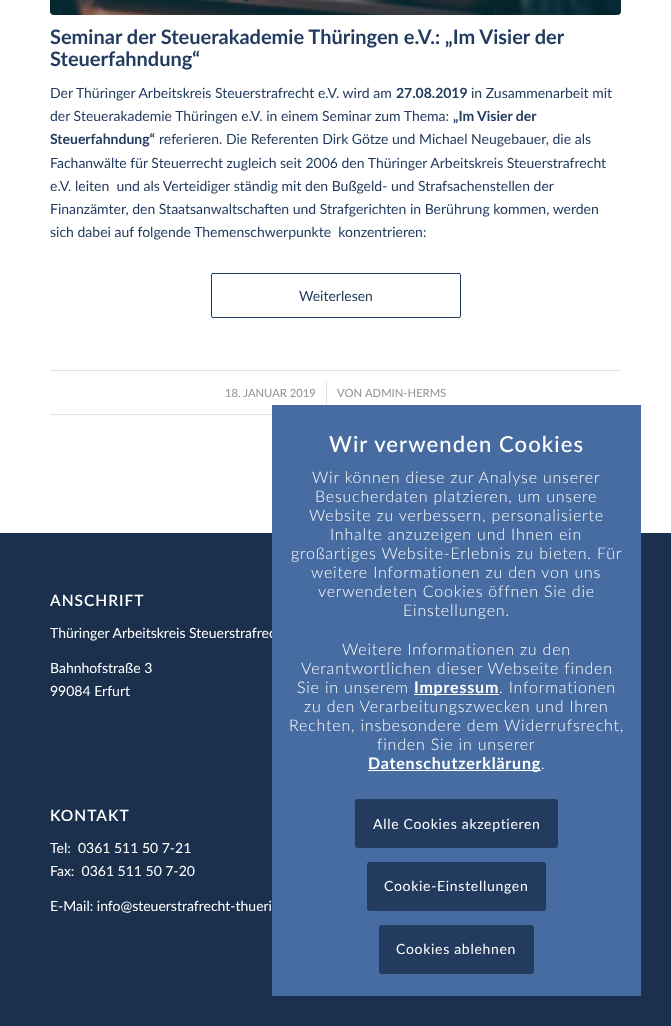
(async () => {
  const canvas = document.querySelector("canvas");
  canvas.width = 671;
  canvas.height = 1026;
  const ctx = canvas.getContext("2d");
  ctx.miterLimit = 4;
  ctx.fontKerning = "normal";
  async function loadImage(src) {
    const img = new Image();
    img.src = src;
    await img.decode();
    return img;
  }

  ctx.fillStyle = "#ffffff";
  ctx.fillRect(0, 0, 671, 1026);
  ctx.drawImage(await loadImage("img/1.png"), 50, 0, 571, 15);
  ctx.beginPath();
  ctx.roundRect(211.5, 273.5, 249, 44, 1.5);
  ctx.strokeStyle = "#223b5f";
  ctx.stroke();
  for (const [x, y, w, h, color] of [
    [50, 370, 571, 1, "#e1e1e1"],
    [50, 414, 222, 1, "#e1e1e1"],
    [326, 381, 1, 23, "#e1e1e1"],
    [0, 533, 671, 493, "#1b304d"],
  ]) {
    ctx.fillStyle = color;
    ctx.fillRect(x, y, w, h);
  }
  ctx.font = "bold 20px Lato";
  ctx.fillStyle = "#223b5f";
  ctx.fillText("Seminar der Steuerakademie Thüringen e.V.: „Im Visier der", 50, 44);
  ctx.fillText("Steuerfahndung“", 50, 66);
  ctx.font = "14px Lato";
  ctx.fillText("Der Thüringer Arbeitskreis Steuerstrafrecht e.V. wird am", 50, 98);
  ctx.font = "bold 14px Lato";
  ctx.fillText("27.08.2019", 396, 98);
  ctx.font = "14px Lato";
  ctx.fillText("in Zusammenarbeit mit", 471, 98);
  ctx.fillText("der Steuerakademie Thüringen e.V. in einem Seminar zum Thema:", 50, 121);
  ctx.font = "bold 14px Lato";
  ctx.fillText("„Im Visier der", 453, 121);
  ctx.fillText("Steuerfahndung“", 50, 144);
  ctx.font = "14px Lato";
  for (const [text, x, y] of [
    ["referieren. Die Referenten Dirk Götze und Michael Neugebauer, die als", 159, 144],
    ["Fachanwälte für Steuerrecht zugleich seit 2006 den Thüringer Arbeitskreis Steuerstrafrecht", 50, 168],
    ["e.V. leiten  und als Verteidiger ständig mit den Bußgeld- und Strafsachenstellen der", 50, 191],
    ["Finanzämter, den Staatsanwaltschaften und Strafgerichten in Berührung kommen, werden", 50, 214],
    ["sich dabei auf folgende Themenschwerpunkte  konzentrieren:", 50, 237],
    ["Weiterlesen", 299, 301],
  ]) {
    ctx.fillText(text, x, y);
  }
  ctx.font = "11.25px Lato";
  ctx.fillStyle = "#919191";
  for (const [text, x, y] of [
    ["18. JANUAR 2019", 225, 397],
    ["VON", 337, 397],
    ["ADMIN-HERMS", 365, 397],
  ]) {
    ctx.fillText(text, x, y);
  }
  ctx.letterSpacing = "1px";
  ctx.font = "600 15.5px Lato";
  ctx.fillStyle = "#ffffff";
  ctx.fillText("ANSCHRIFT", 50, 606);
  ctx.letterSpacing = "0px";
  ctx.font = "14px Lato";
  for (const [text, x, y] of [
    ["Thüringer Arbeitskreis Steuerstrafrec", 50, 638],
    ["Bahnhofstraße 3", 50, 673],
    ["99084 Erfurt", 50, 696],
  ]) {
    ctx.fillText(text, x, y);
  }
  ctx.letterSpacing = "1px";
  ctx.font = "600 15.5px Lato";
  ctx.fillText("KONTAKT", 50, 821);
  ctx.letterSpacing = "0px";
  ctx.font = "14px Lato";
  for (const [text, x, y] of [
    ["Tel:  0361 511 50 7-21", 50, 853],
    ["Fax:  0361 511 50 7-20", 50, 876],
    ["E-Mail: info@steuerstrafrecht-thueri", 50, 911],
  ]) {
    ctx.fillText(text, x, y);
  }
  ctx.fillStyle = "#476ca1";
  ctx.fillRect(272, 405, 369, 591);
  ctx.letterSpacing = "1.1px";
  ctx.font = "500 22px Lato";
  ctx.fillStyle = "#ffffff";
  ctx.fillText("Wir verwenden Cookies", 329, 452);
  ctx.letterSpacing = "0.8px";
  ctx.font = "300 16px Lato";
  for (const [text, x, y] of [
    ["Wir können diese zur Analyse unserer", 312, 483],
    ["Besucherdaten platzieren, um unsere", 315, 502],
    ["Website zu verbessern, personalisierte", 309, 521],
    ["Inhalte anzuzeigen und Ihnen ein", 330, 540],
    ["großartiges Website-Erlebnis zu bieten. Für", 291, 559],
    ["weitere Informationen zu den von uns", 311, 578],
    ["verwendeten Cookies öffnen Sie die", 318, 597],
    ["Einstellungen.", 403, 616],
    ["Weitere Informationen zu den", 342, 655],
    ["Verantwortlichen dieser Webseite finden", 301, 674],
    ["Sie in unserem", 297, 693],
  ]) {
    ctx.fillText(text, x, y);
  }
  ctx.fillRect(414, 694, 85, 1);
  ctx.font = "bold 16px Lato";
  ctx.fillText("Impressum", 414, 693);
  ctx.font = "300 16px Lato";
  for (const [text, x, y] of [
    [". Informationen", 499, 693],
    ["zu den Verarbeitungszwecken und Ihren", 304, 712],
    ["Rechten, insbesondere dem Widerrufsrecht,", 289, 731],
    ["finden Sie in unserer", 377, 750],
  ]) {
    ctx.fillText(text, x, y);
  }
  ctx.fillRect(368, 770, 173, 1);
  ctx.font = "bold 16px Lato";
  ctx.fillText("Datenschutzerklärung", 368, 769);
  ctx.font = "300 16px Lato";
  ctx.fillText(".", 541, 769);
  ctx.fillStyle = "#223b5f";
  ctx.beginPath();
  ctx.roundRect(356, 800, 201, 47, 2);
  ctx.fill();
  ctx.lineWidth = 2;
  ctx.stroke();
  ctx.letterSpacing = "0.7px";
  ctx.font = "14px Lato";
  ctx.fillStyle = "#ffffff";
  ctx.fillText("Alle Cookies akzeptieren", 373, 829);
  ctx.fillStyle = "#223b5f";
  ctx.beginPath();
  ctx.roundRect(368, 863, 177, 47, 2);
  ctx.fill();
  ctx.stroke();
  ctx.fillStyle = "#ffffff";
  ctx.fillText("Cookie-Einstellungen", 384, 891);
  ctx.fillStyle = "#223b5f";
  ctx.beginPath();
  ctx.roundRect(380, 926, 153, 47, 2);
  ctx.fill();
  ctx.stroke();
  ctx.fillStyle = "#ffffff";
  ctx.fillText("Cookies ablehnen", 396, 954);
})();
